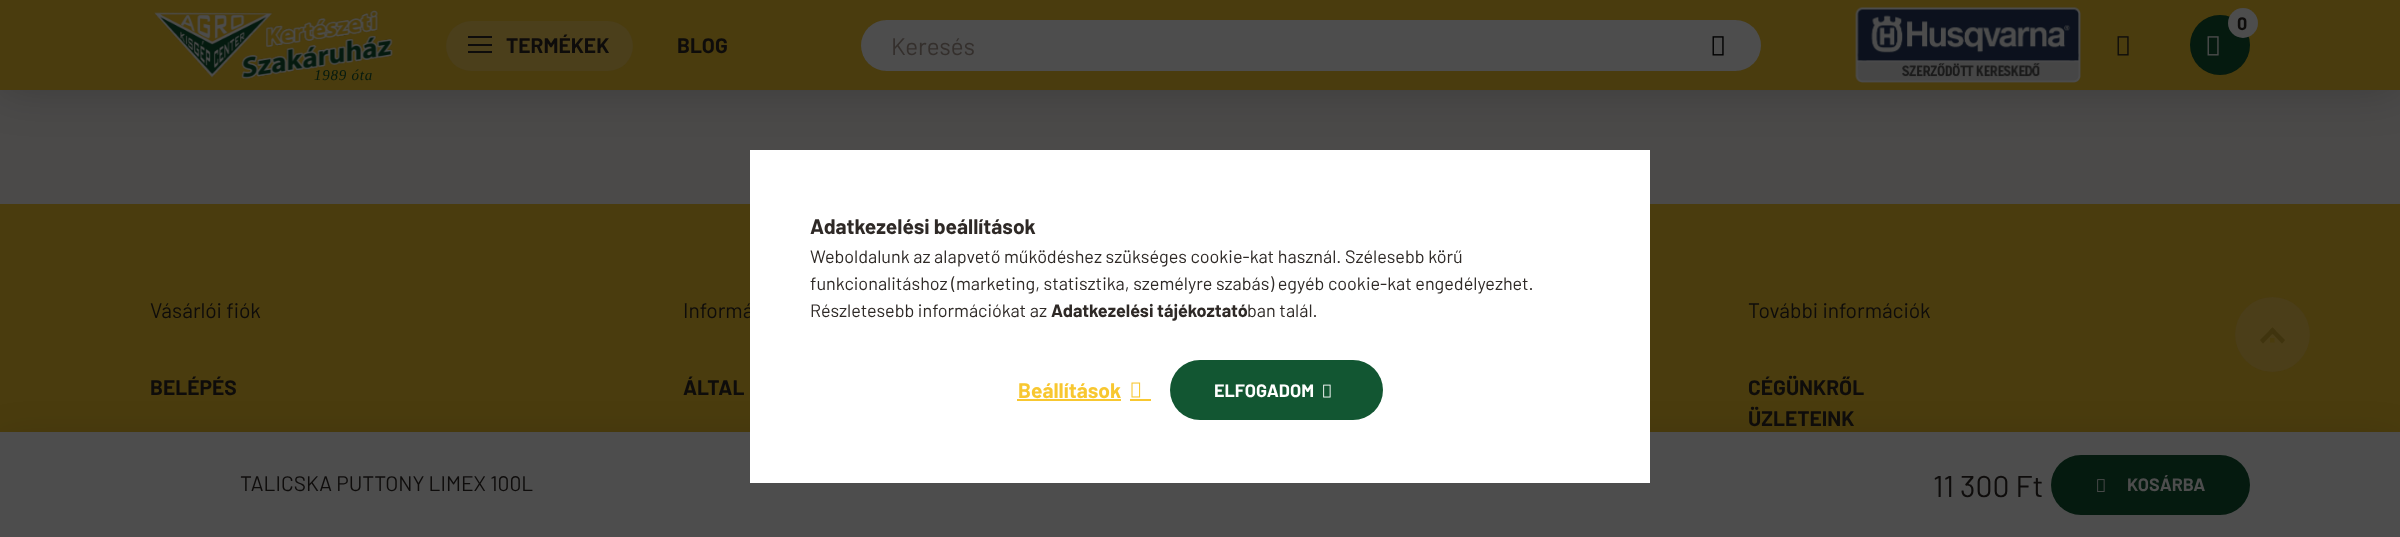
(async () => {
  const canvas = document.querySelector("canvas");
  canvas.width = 2400;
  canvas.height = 537;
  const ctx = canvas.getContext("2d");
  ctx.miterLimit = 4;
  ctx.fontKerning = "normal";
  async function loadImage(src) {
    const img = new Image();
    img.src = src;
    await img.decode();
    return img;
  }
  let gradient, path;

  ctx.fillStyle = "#4b4a49";
  ctx.fillRect(0, 0, 2400, 537);
  ctx.fillStyle = "rgba(0, 0, 0, 0.2)";
  ctx.filter = "blur(22.5px)";
  ctx.beginPath();
  ctx.rect(0, 0, 2400, 90);
  ctx.fill();
  ctx.filter = "none";
  ctx.fillStyle = "#4a3c0e";
  ctx.fillRect(0, 0, 2400, 90);
  ctx.fillStyle = "#4b3f1b";
  ctx.beginPath();
  ctx.roundRect(446, 21, 187, 50, 25);
  ctx.fill();
  for (const [x, y, w, h, color] of [
    [468, 36, 24, 2, "#0e0c0b"],
    [468, 44, 24, 2, "#0e0c0b"],
    [468, 51, 24, 2, "#0e0c0b"],
  ]) {
    ctx.fillStyle = color;
    ctx.fillRect(x, y, w, h);
  }
  ctx.drawImage(await loadImage("img/1.png"), 1855, 7, 226, 76);
  ctx.fillStyle = "#051a0f";
  ctx.beginPath();
  ctx.arc(2220, 45, 30, 0, Math.PI * 2);
  ctx.fill();
  ctx.fillStyle = "#4d4d4d";
  ctx.beginPath();
  ctx.arc(2243, 23, 15, 0, Math.PI * 2);
  ctx.fill();
  ctx.drawImage(await loadImage("img/2.png"), 2207, 36, 12, 20);
  ctx.beginPath();
  ctx.roundRect(861, 20, 900, 51, 25.5);
  ctx.fill();
  ctx.drawImage(await loadImage("img/3.png"), 1712, 36, 12, 20);
  ctx.drawImage(await loadImage("img/4.png"), 2117, 36, 12, 20);
  ctx.drawImage(await loadImage("img/5.png"), 154, 10, 239, 69);
  ctx.fillStyle = "#4a3c0e";
  ctx.fillRect(0, 204, 2400, 228);
  ctx.fillStyle = "rgba(0, 0, 0, 0.18)";
  ctx.filter = "blur(22.5px)";
  ctx.beginPath();
  ctx.rect(0, 447, 2400, 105);
  ctx.fill();
  ctx.filter = "none";
  ctx.fillStyle = "#4d4d4d";
  ctx.fillRect(0, 432, 2400, 105);
  gradient = ctx.createLinearGradient(2051, 485, 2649, 485);
  gradient.addColorStop(0.33, "#051a0f");
  gradient.addColorStop(0.67, "#4a3c0e");
  ctx.fillStyle = gradient;
  ctx.beginPath();
  ctx.roundRect(2051, 455, 199, 60, 30);
  ctx.fill();
  ctx.drawImage(await loadImage("img/6.png"), 2097, 479, 8, 13);
  ctx.fillStyle = "#4b3e19";
  ctx.beginPath();
  ctx.arc(2272.5, 334.5, 37.5, 0, Math.PI * 2);
  ctx.fill();
  ctx.fillStyle = "#40340e";
  path = new Path2D("M2282 343.5L2269.5 330.5L2272.5 327.5L2285 340Z");
  ctx.fill(path);
  ctx.fillStyle = "#4a3c0e";
  path = new Path2D("M2270 342.5V338H2274.5V342.5Z");
  ctx.fill(path);
  ctx.fillStyle = "#40340e";
  path = new Path2D("M2260 340L2272.5 327.5L2275.5 330.5L2263 343.5Z");
  ctx.fill(path);
  ctx.font = "bold 21px Barlow";
  ctx.fillStyle = "#0e0c0b";
  ctx.fillText("TERMÉKEK", 506, 53);
  ctx.fillText("BLOG", 677, 53);
  ctx.font = "bold 18px Barlow";
  ctx.fillText("0", 2237, 30);
  ctx.font = "24px Barlow";
  ctx.fillStyle = "#342f2c";
  ctx.fillText("Keresés", 891, 55);
  ctx.letterSpacing = "0.75px";
  ctx.font = "italic 15px Liberation Serif";
  ctx.fillStyle = "#051a0f";
  ctx.fillText("1989 óta", 314, 80);
  ctx.letterSpacing = "0px";
  ctx.font = "21px Barlow";
  ctx.fillStyle = "#0e0c0b";
  ctx.fillText("Vásárlói fiók", 150, 318);
  ctx.font = "bold 21px Barlow";
  ctx.fillText("BELÉPÉS", 150, 395);
  ctx.font = "21px Barlow";
  ctx.fillText("Informá", 683, 318);
  ctx.font = "bold 21px Barlow";
  ctx.fillText("ÁLTAL", 683, 395);
  ctx.font = "21px Barlow";
  ctx.fillText("További információk", 1748, 318);
  ctx.font = "bold 21px Barlow";
  ctx.fillText("CÉGÜNKRŐL", 1748, 395);
  ctx.fillText("ÜZLETEINK", 1748, 426);
  ctx.font = "21px Barlow";
  ctx.fillText("TALICSKA PUTTONY LIMEX 100L", 240, 491);
  ctx.font = "30px Barlow";
  ctx.fillText("11 300 Ft", 1933, 497);
  ctx.font = "bold 18px Barlow";
  ctx.fillStyle = "#4d4d4d";
  ctx.fillText("KOSÁRBA", 2127, 491);
  ctx.fillStyle = "#ffffff";
  ctx.fillRect(750, 150, 900, 333);
  ctx.font = "bold 21px Barlow";
  ctx.fillStyle = "#2e2926";
  ctx.fillText("Adatkezelési beállítások", 810, 234);
  ctx.font = "18px Barlow";
  for (const [text, x, y] of [
    ["Weboldalunk az alapvető működéshez szükséges cookie-kat használ. Szélesebb körű", 810, 263],
    ["funkcionalitáshoz (marketing, statisztika, személyre szabás) egyéb cookie-kat engedélyezhet.", 810, 290],
    ["Részletesebb információkat az", 810, 317],
  ]) {
    ctx.fillText(text, x, y);
  }
  ctx.font = "bold 18px Barlow";
  ctx.fillText("Adatkezelési tájékoztató", 1051, 317);
  ctx.font = "18px Barlow";
  ctx.fillText("ban talál.", 1247, 317);
  ctx.font = "bold 21px Barlow";
  ctx.fillStyle = "#f8c730";
  ctx.fillText("Beállítások", 1018, 398);
  ctx.fillRect(1017, 399, 104, 2);
  ctx.drawImage(await loadImage("img/7.png"), 1131, 382, 10, 16);
  ctx.fillRect(1130, 399, 21, 2);
  gradient = ctx.createLinearGradient(1170, 390, 1809, 390);
  gradient.addColorStop(0.33, "#125632");
  gradient.addColorStop(0.67, "#f8c730");
  ctx.fillStyle = gradient;
  ctx.beginPath();
  ctx.roundRect(1170, 360, 213, 60, 30);
  ctx.fill();
  ctx.font = "bold 18px Barlow";
  ctx.fillStyle = "#ffffff";
  ctx.fillText("ELFOGADOM", 1214, 397);
  ctx.drawImage(await loadImage("img/8.png"), 1323, 384, 8, 14);
})();
